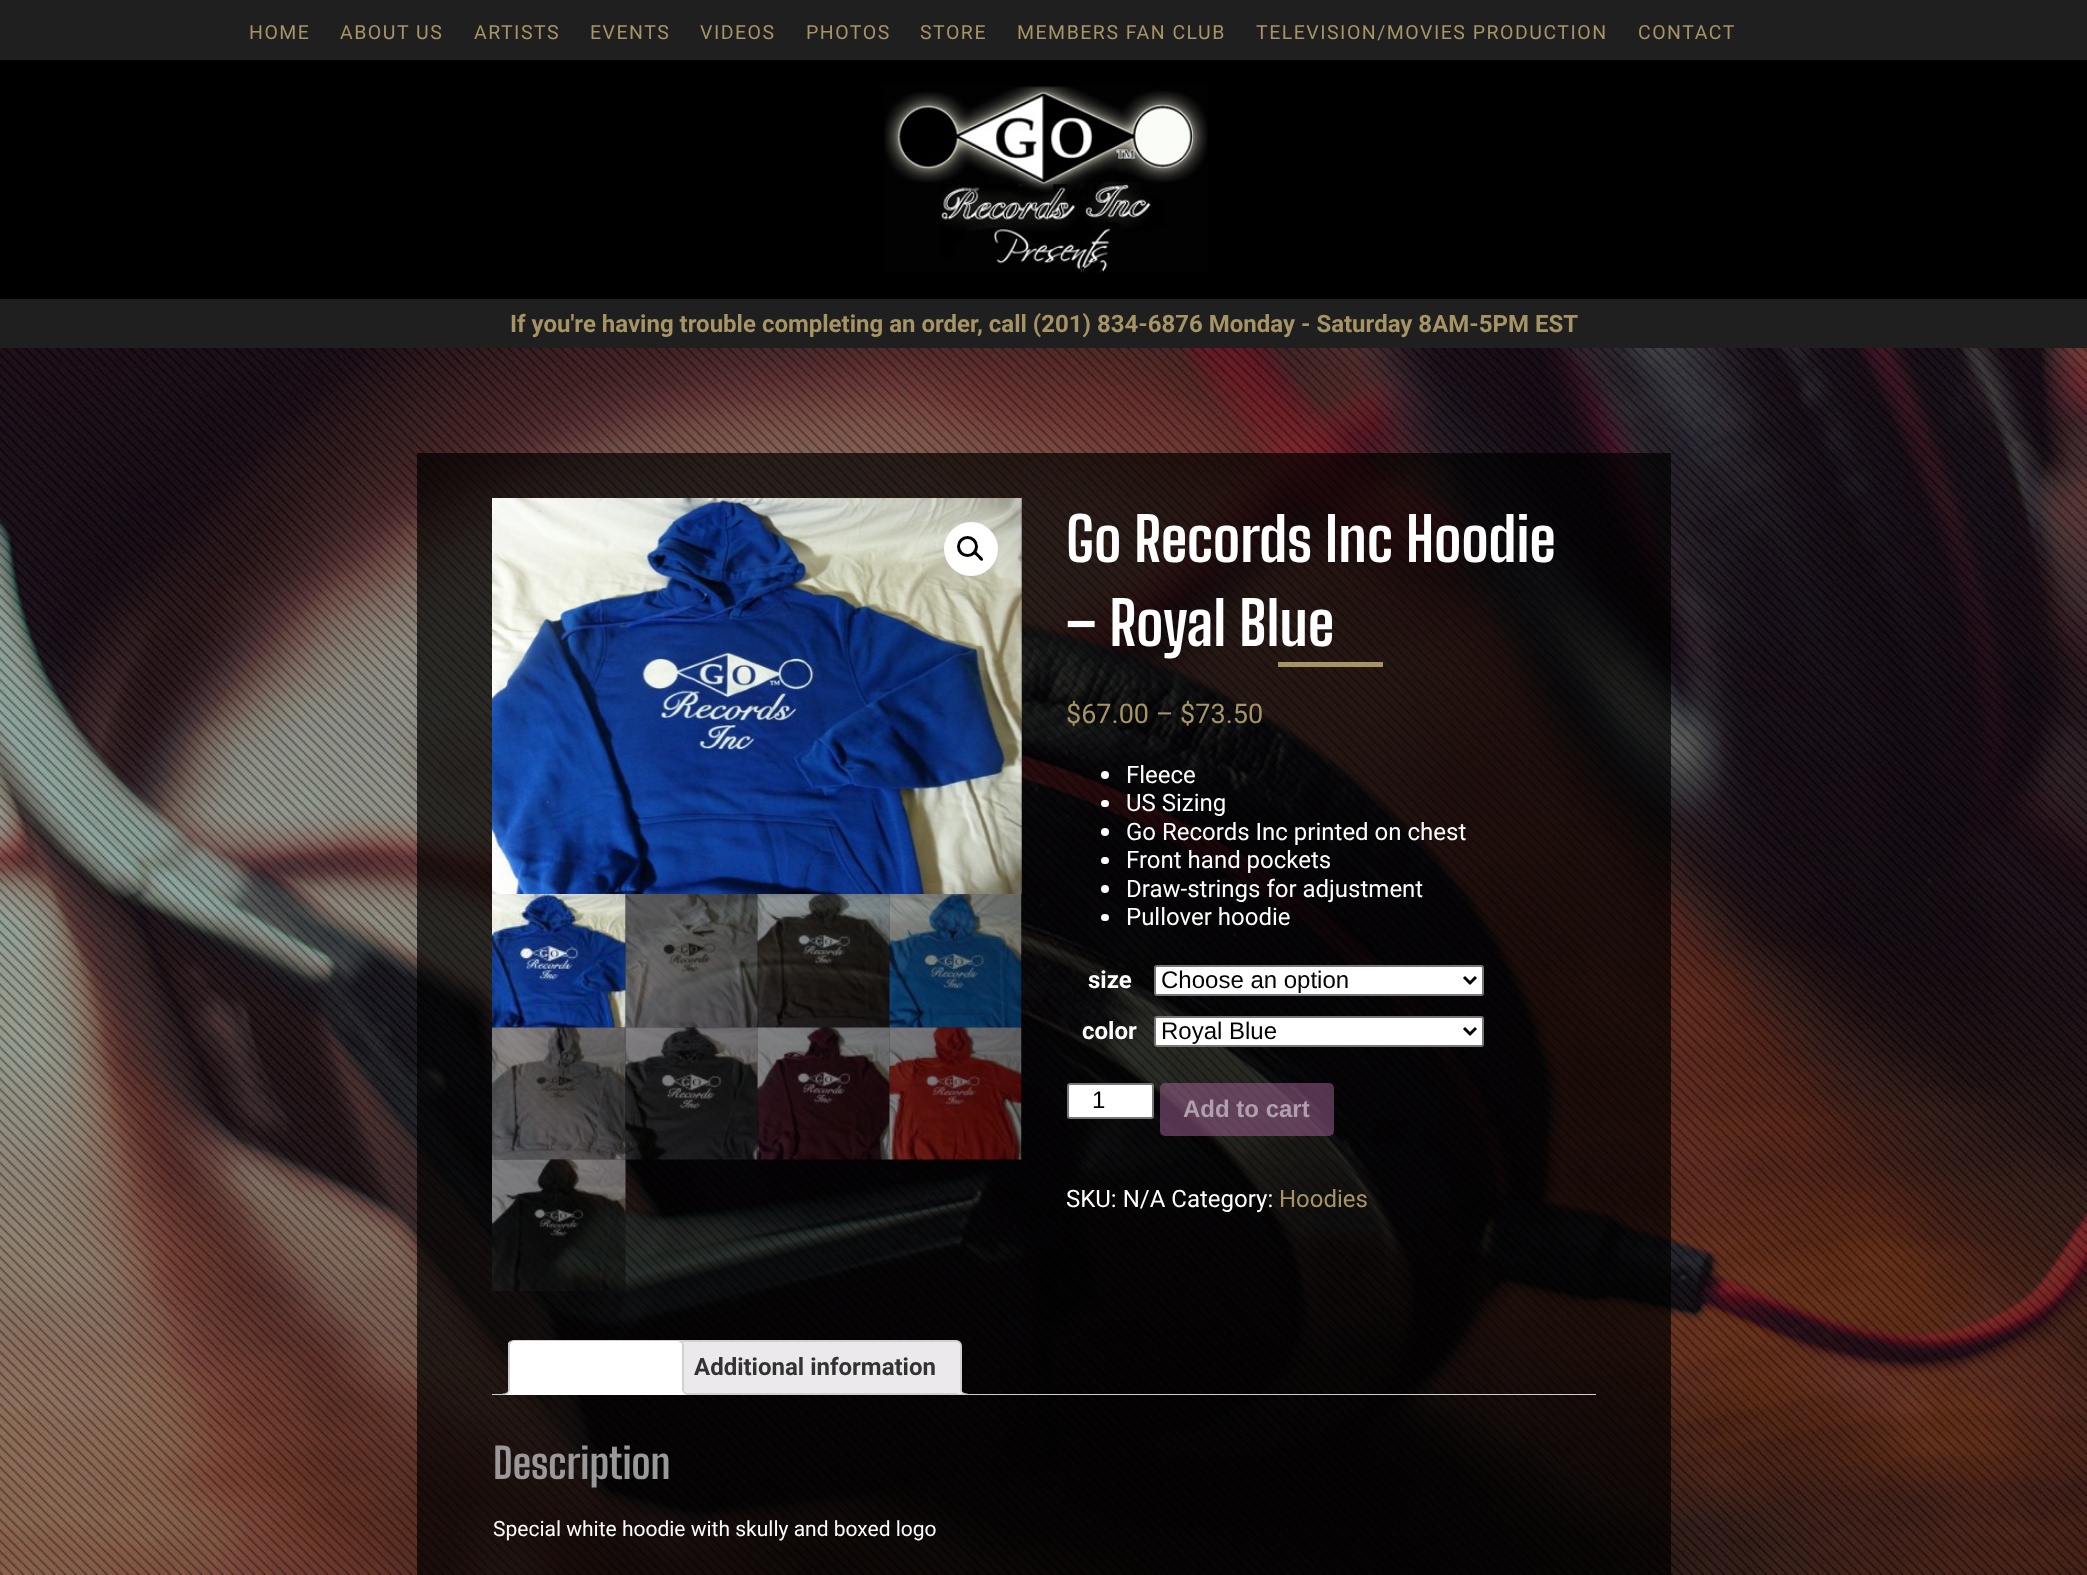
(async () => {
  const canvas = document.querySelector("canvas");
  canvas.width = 2087;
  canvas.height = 1575;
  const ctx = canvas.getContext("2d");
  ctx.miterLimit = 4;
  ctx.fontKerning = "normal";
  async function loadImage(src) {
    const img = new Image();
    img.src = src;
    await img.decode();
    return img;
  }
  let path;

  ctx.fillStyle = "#ffffff";
  ctx.fillRect(0, 0, 2087, 1575);
  ctx.fillStyle = "#000000";
  ctx.fillRect(0, 60, 2087, 239);
  ctx.fillStyle = "#1f1f1f";
  ctx.fillRect(0, 0, 2087, 60);
  ctx.drawImage(await loadImage("img/1.png"), 884, 86, 324, 187);
  ctx.fillRect(0, 299, 2087, 49);
  ctx.drawImage(await loadImage("img/2.png"), 0, 348, 2087, 1227);
  ctx.fillStyle = "rgba(0, 0, 0, 0.7)";
  ctx.fillRect(417, 453, 1254, 1122);
  ctx.drawImage(await loadImage("img/3.png"), 492, 498, 530, 396);
  ctx.fillStyle = "#ffffff";
  ctx.beginPath();
  ctx.arc(971, 549, 27, 0, Math.PI * 2);
  ctx.fill();
  ctx.beginPath();
  ctx.arc(967.5, 546.5, 9, 0, Math.PI * 2);
  ctx.strokeStyle = "#000000";
  ctx.lineWidth = 3;
  ctx.stroke();
  ctx.fillStyle = "#000000";
  path = new Path2D("M974 552C976 550 978.5 554 979.5 555C980.5 556 984.5 558.5 982.5 560.5C981 562 978.5 558 977.5 557C976.5 556 972.5 553.5 974 552Z");
  ctx.fill(path);
  ctx.drawImage(await loadImage("img/4.png"), 492, 894, 134, 134);
  ctx.drawImage(await loadImage("img/5.png"), 625, 894, 133, 134);
  ctx.drawImage(await loadImage("img/6.png"), 757, 894, 133, 134);
  ctx.drawImage(await loadImage("img/7.png"), 889, 894, 133, 134);
  ctx.drawImage(await loadImage("img/8.png"), 492, 1027, 134, 133);
  ctx.drawImage(await loadImage("img/9.png"), 625, 1027, 133, 133);
  ctx.drawImage(await loadImage("img/10.png"), 757, 1027, 133, 133);
  ctx.drawImage(await loadImage("img/11.png"), 889, 1027, 133, 133);
  ctx.drawImage(await loadImage("img/12.png"), 492, 1159, 134, 132);
  ctx.fillStyle = "#a69465";
  ctx.fillRect(1278, 662, 105, 5);
  ctx.fillStyle = "#ffffff";
  ctx.beginPath();
  ctx.arc(1105, 775, 4, 0, Math.PI * 2);
  ctx.fill();
  ctx.beginPath();
  ctx.roundRect(1101, 800, 8, 7, 3.5);
  ctx.fill();
  ctx.beginPath();
  ctx.arc(1105, 832, 4, 0, Math.PI * 2);
  ctx.fill();
  ctx.beginPath();
  ctx.roundRect(1101, 857, 8, 7, 3.5);
  ctx.fill();
  ctx.beginPath();
  ctx.arc(1105, 889, 4, 0, Math.PI * 2);
  ctx.fill();
  ctx.beginPath();
  ctx.roundRect(1101, 914, 8, 7, 3.5);
  ctx.fill();
  ctx.beginPath();
  ctx.roundRect(1155, 966, 328, 29, 2);
  ctx.fill();
  ctx.strokeStyle = "#767676";
  ctx.lineWidth = 2;
  ctx.stroke();
  path = new Path2D("M1464 977L1470 983L1476 977");
  ctx.strokeStyle = "#000000";
  ctx.lineWidth = 3;
  ctx.stroke(path);
  ctx.beginPath();
  ctx.roundRect(1155, 1017, 328, 29, 2);
  ctx.fill();
  ctx.strokeStyle = "#767676";
  ctx.lineWidth = 2;
  ctx.stroke();
  path = new Path2D("M1464 1028L1470 1034L1476 1028");
  ctx.strokeStyle = "#000000";
  ctx.lineWidth = 3;
  ctx.stroke(path);
  ctx.beginPath();
  ctx.roundRect(1068, 1084, 85, 34, 2);
  ctx.fill();
  ctx.strokeStyle = "#767676";
  ctx.lineWidth = 2;
  ctx.stroke();
  ctx.fillStyle = "rgba(164, 100, 151, 0.5)";
  ctx.beginPath();
  ctx.roundRect(1160, 1083, 174, 53, 5);
  ctx.fill();
  ctx.fillStyle = "#ebe9eb";
  ctx.beginPath();
  ctx.roundRect(670, 1341, 291, 53, [5, 5, 0, 0]);
  ctx.fill();
  ctx.strokeStyle = "#d3ced2";
  ctx.stroke();
  ctx.save();
  ctx.beginPath();
  ctx.rect(492, 1340, 1104, 55);
  ctx.clip();
  path = new Path2D("M957 1391C957 1396.5 960 1398 965 1398V1395C963 1394.5 961 1393 960.5 1391Z");
  ctx.fill(path);
  ctx.restore();
  ctx.fillStyle = "#d3ced2";
  path = new Path2D("M960 1387.5H967.5V1395C963.5 1395 960 1393.5 960 1389ZM961.5 1387.5H967.5V1393.5C964.5 1393.5 961.5 1392.5 961.5 1389Z");
  ctx.fill(path, "evenodd");
  ctx.fillRect(492, 1394, 1104, 1);
  ctx.fillStyle = "#ffffff";
  ctx.beginPath();
  ctx.roundRect(509, 1340, 175, 55, [6, 6, 0, 0]);
  ctx.fill();
  ctx.fillStyle = "#d3ced2";
  path = new Path2D("M514 1340L510 1341L511 1342L514 1341H678L681 1343L682 1341C681 1340 679 1340 678 1340Z");
  ctx.fill(path);
  path = new Path2D("M682 1341C683 1342 684 1344 684 1346V1395L682 1393V1346C682 1345 682 1343 681 1343Z");
  ctx.fill(path);
  ctx.fillStyle = "#ffffff";
  path = new Path2D("M684 1395L682 1393V1394H510L508 1395Z");
  ctx.fill(path);
  ctx.fillStyle = "#d3ced2";
  path = new Path2D("M508 1395L510 1394V1346C510 1344 511 1343 511 1342L510 1341L508 1343Z");
  ctx.fill(path);
  ctx.save();
  ctx.beginPath();
  ctx.rect(492, 1340, 1104, 55);
  ctx.clip();
  ctx.fillStyle = "#ffffff";
  path = new Path2D("M506 1394.5V1398C510.5 1398 513 1395.5 513 1391H509.5C509 1392.5 507.5 1394 506 1394.5Z");
  ctx.fill(path);
  ctx.restore();
  path = new Path2D("M502.5 1387.5H510C510 1393 508 1395 502.5 1395ZM502.5 1387.5H508.5C508.5 1392 507 1393.5 502.5 1393.5Z");
  ctx.fill(path, "evenodd");
  ctx.save();
  ctx.beginPath();
  ctx.rect(492, 1340, 1104, 55);
  ctx.clip();
  ctx.fillStyle = "#ffffff";
  path = new Path2D("M680 1391C680 1395.5 682.5 1398 687 1398V1395C685 1394.5 683.5 1393 683 1391Z");
  ctx.fill(path);
  ctx.restore();
  path = new Path2D("M682.5 1387.5H690V1395C686 1395 682.5 1393.5 682.5 1389ZM684 1387.5H690V1393.5C687 1393.5 684 1392.5 684 1389Z");
  ctx.fill(path, "evenodd");
  ctx.letterSpacing = "1.5px";
  ctx.font = "19.5px Roboto";
  ctx.fillStyle = "#a69465";
  for (const [text, x, y] of [
    ["HOME", 249, 39],
    ["ABOUT US", 340, 39],
    ["ARTISTS", 474, 39],
    ["EVENTS", 590, 39],
    ["VIDEOS", 700, 39],
    ["PHOTOS", 806, 39],
    ["STORE", 920, 39],
    ["MEMBERS FAN CLUB", 1017, 39],
    ["TELEVISION/MOVIES PRODUCTION", 1256, 39],
    ["CONTACT", 1638, 39],
  ]) {
    ctx.fillText(text, x, y);
  }
  ctx.letterSpacing = "0px";
  ctx.font = "bold 24px Roboto";
  ctx.fillText("If you're having trouble completing an order, call (201) 834-6876 Monday - Saturday 8AM-5PM EST", 510, 332);
  ctx.font = "bold 60px Big Shoulders Text";
  ctx.fillStyle = "#ffffff";
  ctx.fillText("Go Records Inc Hoodie", 1066, 562);
  ctx.fillText("– Royal Blue", 1066, 646);
  ctx.font = "27px Roboto";
  ctx.fillStyle = "#a69465";
  ctx.fillText("$67.00 – $73.50", 1066, 723);
  ctx.font = "24px Roboto";
  ctx.fillStyle = "#ffffff";
  for (const [text, x, y] of [
    ["Fleece", 1126, 783],
    ["US Sizing", 1126, 811],
    ["Go Records Inc printed on chest", 1126, 840],
    ["Front hand pockets", 1126, 868],
    ["Draw-strings for adjustment", 1126, 897],
    ["Pullover hoodie", 1126, 925],
  ]) {
    ctx.fillText(text, x, y);
  }
  ctx.font = "bold 24px Roboto";
  ctx.fillText("size", 1088, 988);
  ctx.font = "24px Liberation Sans";
  ctx.fillStyle = "#000000";
  ctx.fillText("Choose an option", 1161, 988);
  ctx.font = "bold 24px Roboto";
  ctx.fillStyle = "#ffffff";
  ctx.fillText("color", 1082, 1039);
  ctx.font = "24px Liberation Sans";
  ctx.fillStyle = "#000000";
  ctx.fillText("Royal Blue", 1161, 1039);
  ctx.fillText("1", 1092, 1108);
  ctx.font = "bold 24px Liberation Sans";
  ctx.fillStyle = "#b0a0ac";
  ctx.fillText("Add to cart", 1183, 1117);
  ctx.font = "24px Roboto";
  ctx.fillStyle = "#ffffff";
  ctx.fillText("SKU: N/A Category:", 1066, 1207);
  ctx.fillStyle = "#a69465";
  ctx.fillText("Hoodies", 1279, 1207);
  ctx.font = "bold 24px Roboto";
  ctx.fillStyle = "#333333";
  ctx.fillText("Additional information", 694, 1375);
  ctx.font = "bold 42px Big Shoulders Text";
  ctx.fillStyle = "#999999";
  ctx.fillText("Description", 493, 1479);
  ctx.font = "21px Roboto";
  ctx.fillStyle = "#ffffff";
  ctx.fillText("Special white hoodie with skully and boxed logo", 493, 1536);
})();
